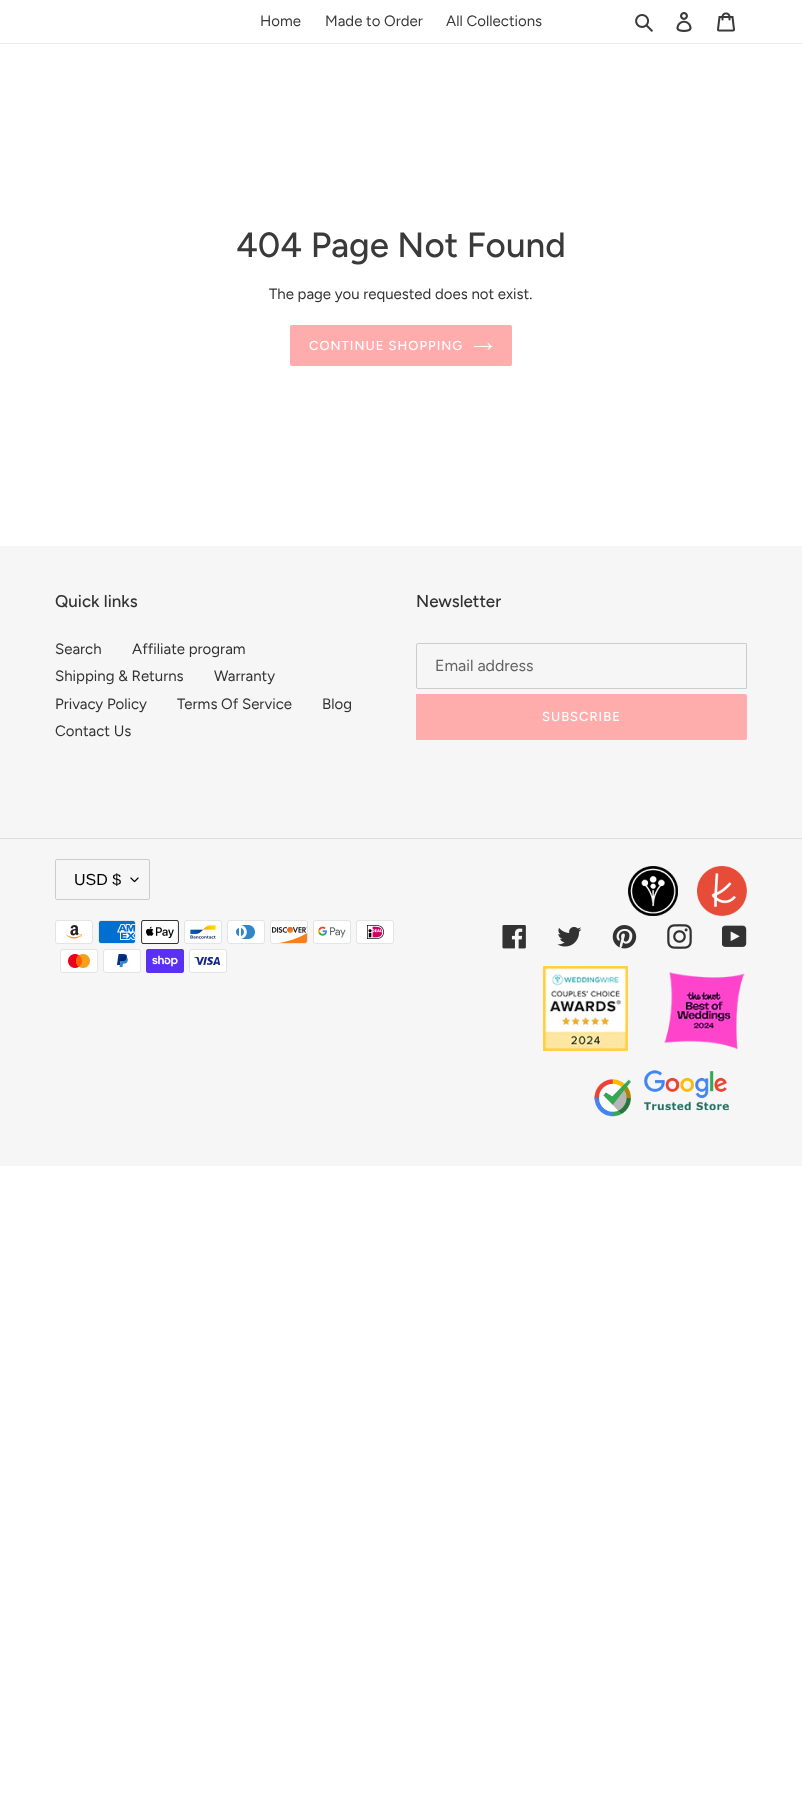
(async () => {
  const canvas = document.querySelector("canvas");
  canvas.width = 802;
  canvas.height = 1811;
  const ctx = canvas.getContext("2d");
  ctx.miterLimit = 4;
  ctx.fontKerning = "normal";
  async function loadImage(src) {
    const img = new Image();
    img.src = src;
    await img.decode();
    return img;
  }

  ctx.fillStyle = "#ffffff";
  ctx.fillRect(0, 0, 802, 1811);
  ctx.fillStyle = "#ebebeb";
  ctx.fillRect(0, 43, 802, 1);
  ctx.drawImage(await loadImage("img/1.png"), 635, 14, 18, 18);
  ctx.drawImage(await loadImage("img/2.png"), 676, 12, 16, 20);
  ctx.drawImage(await loadImage("img/3.png"), 717, 12, 18, 20);
  ctx.fillStyle = "#ffacac";
  ctx.beginPath();
  ctx.roundRect(290, 325, 222, 41, 2);
  ctx.fill();
  ctx.drawImage(await loadImage("img/4.png"), 473, 343, 20, 7);
  ctx.fillStyle = "#f6f6f6";
  ctx.fillRect(0, 546, 802, 620);
  ctx.beginPath();
  ctx.roundRect(416.5, 643.5, 330, 45, [1.5, 0, 0, 1.5]);
  ctx.strokeStyle = "#cccccc";
  ctx.stroke();
  ctx.fillStyle = "#ffacac";
  ctx.beginPath();
  ctx.roundRect(416, 694, 331, 46, [0, 2, 2, 0]);
  ctx.fill();
  ctx.fillStyle = "#dddddd";
  ctx.fillRect(0, 838, 802, 1);
  ctx.drawImage(await loadImage("img/5.png"), 130, 877, 9, 6);
  ctx.beginPath();
  ctx.roundRect(55.5, 859.5, 94, 40, 1.5);
  ctx.stroke();
  ctx.drawImage(await loadImage("img/6.png"), 628, 866, 50, 50);
  ctx.drawImage(await loadImage("img/7.png"), 697, 866, 50, 50);
  ctx.drawImage(await loadImage("img/8.png"), 502, 925, 24, 24);
  ctx.drawImage(await loadImage("img/9.png"), 557, 927, 25, 20);
  ctx.drawImage(await loadImage("img/10.png"), 612, 925, 25, 24);
  ctx.drawImage(await loadImage("img/11.png"), 667, 924, 25, 25);
  ctx.drawImage(await loadImage("img/12.png"), 722, 925, 25, 22);
  ctx.drawImage(await loadImage("img/13.png"), 543, 966, 85, 85);
  ctx.drawImage(await loadImage("img/14.png"), 664, 972, 81, 78);
  ctx.drawImage(await loadImage("img/15.png"), 594, 1070, 135, 47);
  ctx.drawImage(await loadImage("img/16.png"), 55, 920, 38, 24);
  ctx.drawImage(await loadImage("img/17.png"), 98, 920, 38, 24);
  ctx.drawImage(await loadImage("img/18.png"), 141, 920, 38, 24);
  ctx.drawImage(await loadImage("img/19.png"), 184, 920, 38, 24);
  ctx.drawImage(await loadImage("img/20.png"), 227, 920, 38, 24);
  ctx.drawImage(await loadImage("img/21.png"), 270, 920, 38, 24);
  ctx.drawImage(await loadImage("img/22.png"), 313, 920, 38, 24);
  ctx.drawImage(await loadImage("img/23.png"), 356, 920, 38, 24);
  ctx.drawImage(await loadImage("img/24.png"), 60, 949, 38, 24);
  ctx.drawImage(await loadImage("img/25.png"), 103, 949, 38, 24);
  ctx.drawImage(await loadImage("img/26.png"), 146, 949, 38, 24);
  ctx.drawImage(await loadImage("img/27.png"), 189, 949, 38, 24);
  ctx.font = "15px Figtree";
  ctx.fillStyle = "#3a3a3a";
  for (const [text, x, y] of [
    ["Home", 260, 26],
    ["Made to Order", 325, 26],
    ["All Collections", 446, 26],
  ]) {
    ctx.fillText(text, x, y);
  }
  ctx.font = "500 35px Figtree";
  ctx.fillText("404 Page Not Found", 236, 257);
  ctx.font = "15px Figtree";
  ctx.fillStyle = "#333232";
  ctx.fillText("The page you requested does not exist.", 269, 299);
  ctx.letterSpacing = "1px";
  ctx.font = "500 13px Figtree";
  ctx.fillStyle = "#ffffff";
  ctx.fillText("CONTINUE SHOPPING", 309, 350);
  ctx.letterSpacing = "0px";
  ctx.font = "500 17px Figtree";
  ctx.fillStyle = "#333232";
  ctx.fillText("Quick links", 55, 607);
  ctx.font = "15px Figtree";
  for (const [text, x, y] of [
    ["Search", 55, 654],
    ["Affiliate program", 132, 654],
    ["Shipping & Returns", 55, 681],
    ["Warranty", 214, 681],
    ["Privacy Policy", 55, 709],
    ["Terms Of Service", 177, 709],
    ["Blog", 322, 709],
    ["Contact Us", 55, 736],
  ]) {
    ctx.fillText(text, x, y);
  }
  ctx.font = "500 17px Figtree";
  ctx.fillText("Newsletter", 416, 607);
  ctx.font = "16px Figtree";
  ctx.fillStyle = "#626262";
  ctx.fillText("Email address", 435, 671);
  ctx.letterSpacing = "1px";
  ctx.font = "500 13px Figtree";
  ctx.fillStyle = "#ffffff";
  ctx.fillText("SUBSCRIBE", 542, 721);
  ctx.letterSpacing = "0px";
  ctx.font = "16px Liberation Sans";
  ctx.fillStyle = "#000000";
  ctx.fillText("USD $", 74, 885);
})();
